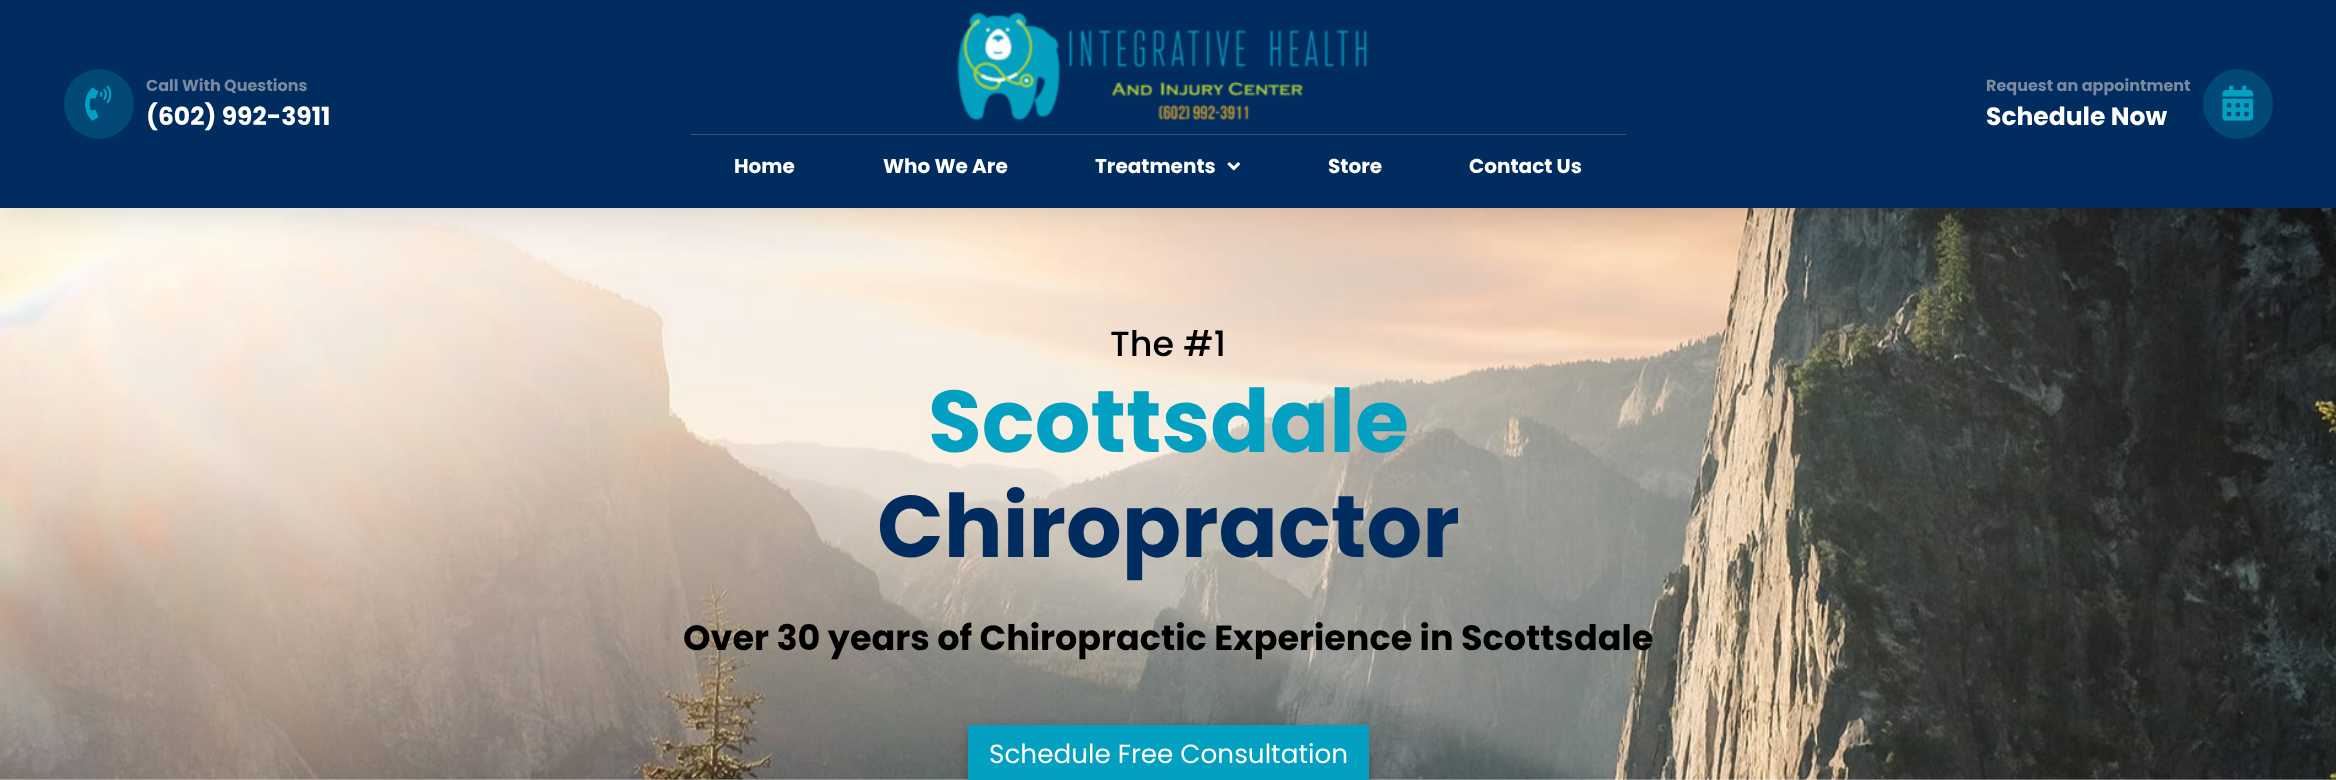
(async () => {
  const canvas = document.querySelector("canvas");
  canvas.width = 2336;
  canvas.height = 780;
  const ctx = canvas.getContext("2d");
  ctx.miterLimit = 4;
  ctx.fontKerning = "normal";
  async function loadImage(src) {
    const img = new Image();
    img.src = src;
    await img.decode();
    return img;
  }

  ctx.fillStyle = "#ffffff";
  ctx.fillRect(0, 0, 2336, 780);
  ctx.drawImage(await loadImage("img/5.png"), 0, 208, 2336, 572);
  ctx.fillStyle = "rgba(0, 0, 0, 0.15)";
  ctx.filter = "blur(20px)";
  ctx.beginPath();
  ctx.rect(0, 3, 2336, 207);
  ctx.fill();
  ctx.filter = "none";
  ctx.fillStyle = "#012c60";
  ctx.fillRect(0, 0, 2336, 208);
  ctx.fillStyle = "#024978";
  ctx.beginPath();
  ctx.arc(99, 104, 35, 0, Math.PI * 2);
  ctx.fill();
  ctx.drawImage(await loadImage("img/1.png"), 85, 85, 27, 36);
  ctx.beginPath();
  ctx.arc(2238, 104, 35, 0, Math.PI * 2);
  ctx.fill();
  ctx.drawImage(await loadImage("img/2.png"), 2222, 85, 32, 36);
  ctx.drawImage(await loadImage("img/3.png"), 957, 11, 411, 110);
  ctx.fillStyle = "#345680";
  ctx.fillRect(691, 134, 935, 1);
  ctx.drawImage(await loadImage("img/4.png"), 1227, 162, 13, 9);
  ctx.fillStyle = "rgba(0, 0, 0, 0.25)";
  ctx.filter = "blur(5.5px)";
  ctx.beginPath();
  ctx.rect(968, 728, 401, 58);
  ctx.fill();
  ctx.filter = "none";
  ctx.fillStyle = "#03a0c1";
  ctx.fillRect(968, 725, 401, 55);
  ctx.font = "bold 16px Poppins";
  ctx.fillStyle = "#7a8a9e";
  ctx.fillText("Call With Questions", 146, 91);
  ctx.font = "bold 25px Poppins";
  ctx.fillStyle = "#ffffff";
  ctx.fillText("(602) 992-3911", 146, 125);
  ctx.font = "bold 16px Poppins";
  ctx.fillStyle = "#7a8a9e";
  ctx.fillText("Request an appointment", 1986, 91);
  ctx.font = "bold 25px Poppins";
  ctx.fillStyle = "#ffffff";
  ctx.fillText("Schedule Now", 1986, 125);
  ctx.font = "bold 20px Poppins";
  for (const [text, x, y] of [
    ["Home", 734, 173],
    ["Who We Are", 883, 173],
    ["Treatments", 1095, 173],
    ["Store", 1328, 173],
    ["Contact Us", 1469, 173],
  ]) {
    ctx.fillText(text, x, y);
  }
  ctx.font = "500 35px Poppins";
  ctx.fillStyle = "#000000";
  ctx.fillText("The #1", 1110, 356);
  ctx.font = "bold 87.5px Poppins";
  ctx.fillStyle = "#03a0c1";
  ctx.fillText("Scottsdale", 928, 452);
  ctx.fillStyle = "#012c60";
  ctx.fillText("Chiropractor", 877, 557);
  ctx.font = "bold 35px Poppins";
  ctx.fillStyle = "#000000";
  ctx.fillText("Over 30 years of Chiropractic Experience in Scottsdale", 683, 650);
  ctx.font = "26.25px Poppins";
  ctx.fillStyle = "#ffffff";
  ctx.fillText("Schedule Free Consultation", 989, 763);
})();
